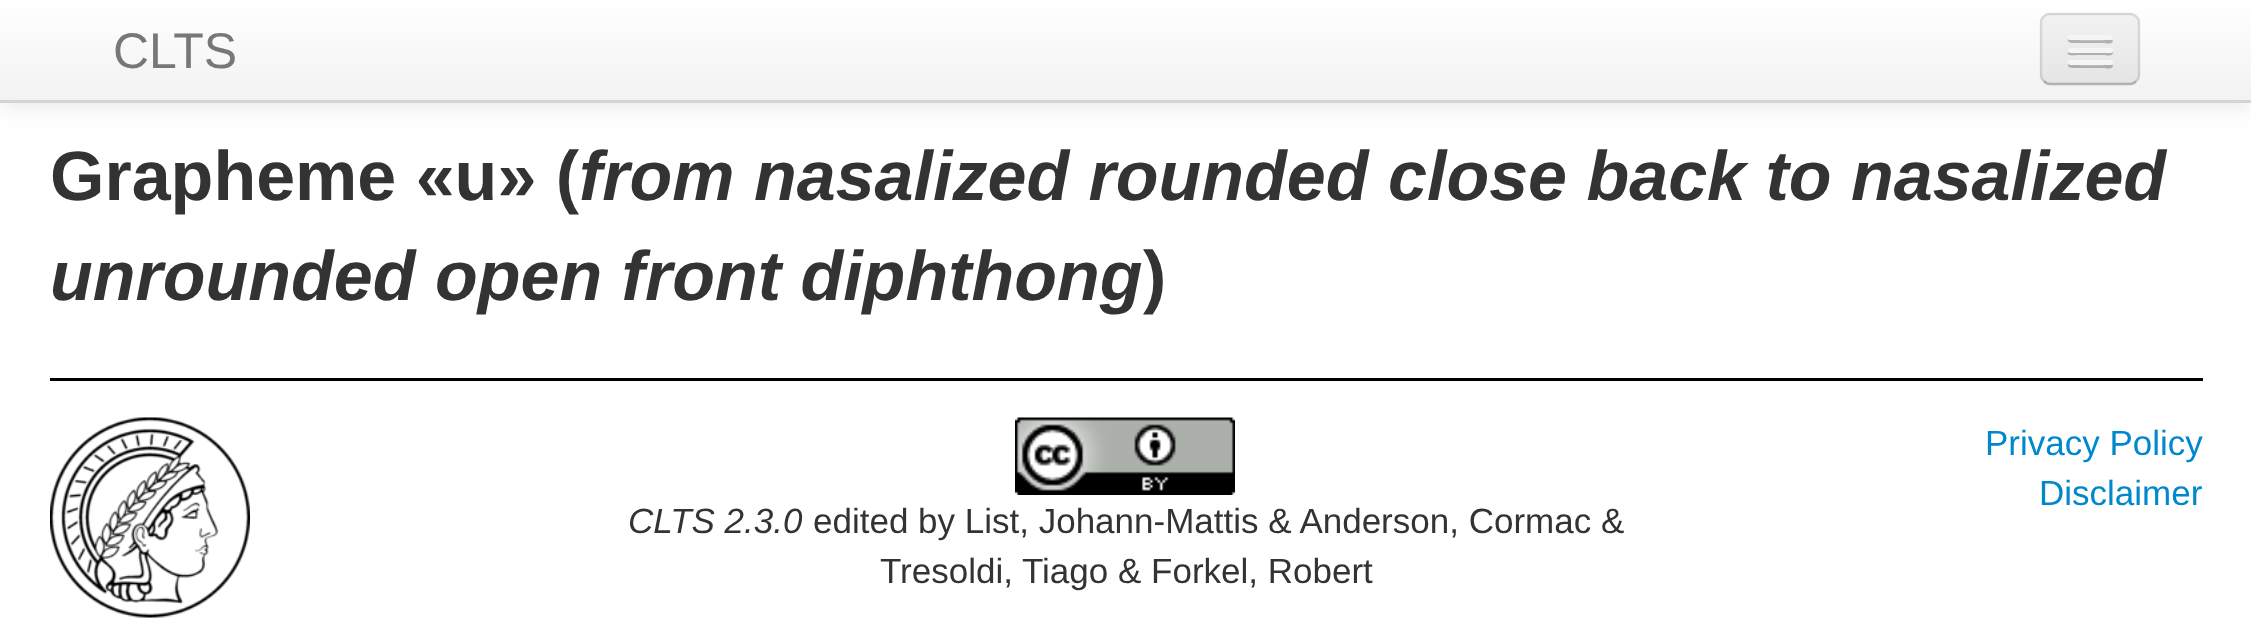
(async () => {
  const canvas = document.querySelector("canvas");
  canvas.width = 2251;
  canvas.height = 623;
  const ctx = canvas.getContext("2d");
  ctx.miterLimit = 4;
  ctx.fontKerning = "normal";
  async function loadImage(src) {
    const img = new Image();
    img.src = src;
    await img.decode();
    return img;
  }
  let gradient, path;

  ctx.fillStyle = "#ffffff";
  ctx.fillRect(0, 0, 2251, 623);
  ctx.fillStyle = "rgba(0, 0, 0, 0.1)";
  ctx.filter = "blur(12.5px)";
  ctx.beginPath();
  ctx.rect(0, 3, 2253, 102);
  ctx.fill();
  ctx.filter = "none";
  gradient = ctx.createLinearGradient(1126, 0, 1126, 100);
  gradient.addColorStop(0, "#ffffff");
  gradient.addColorStop(1, "#f2f2f2");
  ctx.fillStyle = gradient;
  ctx.fillRect(0, 0, 2251, 100);
  ctx.fillStyle = "#d4d4d4";
  ctx.fillRect(0, 100, 2251, 3);
  ctx.fillStyle = "#ededed";
  ctx.beginPath();
  ctx.roundRect(2040, 13, 100, 72, 10);
  ctx.fill();
  ctx.save();
  ctx.beginPath();
  ctx.roundRect(2040, 13, 100, 72, 10);
  ctx.clip();
  gradient = ctx.createLinearGradient(2090, 15, 2090, 83);
  gradient.addColorStop(0, "#f2f2f2");
  gradient.addColorStop(1, "#e5e5e5");
  ctx.fillStyle = gradient;
  ctx.fillRect(2040, 15, 100, 68);
  ctx.restore();
  path = new Path2D("M2136 81C2134.5 83 2132.5 84 2130 84H2050C2047.5 84 2045.5 83 2044 81");
  ctx.strokeStyle = "rgba(0, 0, 0, 0.25)";
  ctx.lineWidth = 2.5;
  ctx.stroke(path);
  path = new Path2D("M2044 81C2042 79.5 2041 77.5 2041 75V22.5C2041 20 2042 18 2044 16.5C2045.5 14.5 2047.5 14 2050 14H2130C2132.5 14 2134.5 14.5 2136 16.5C2138 18 2139 20 2139 22.5V75C2139 77.5 2138 79.5 2136 81");
  ctx.strokeStyle = "rgba(0, 0, 0, 0.1)";
  ctx.stroke(path);
  ctx.fillStyle = "#b2b2b2";
  path = new Path2D("M2068 39C2066 44 2077 43 2077 43H2104C2105 43 2112 45 2113 41L2112 39L2110 40C2107 40 2070 41 2068 39Z");
  ctx.fill(path);
  ctx.fillStyle = "#f5f5f5";
  ctx.beginPath();
  ctx.roundRect(2068, 35, 45, 5, 2.5);
  ctx.fill();
  ctx.fillStyle = "#b0b0b0";
  path = new Path2D("M2068 52C2066 57 2076 55 2077 55H2104C2105 55 2112 57 2113 53L2112 51L2110 52H2070Z");
  ctx.fill(path);
  ctx.fillStyle = "#f5f5f5";
  ctx.beginPath();
  ctx.roundRect(2068, 48, 45, 5, 2.5);
  ctx.fill();
  ctx.fillStyle = "#aeaeae";
  path = new Path2D("M2068 64C2066 69 2077 68 2077 68H2104C2105 68 2112 70 2113 66L2112 64L2110 65C2107 65 2070 66 2068 64Z");
  ctx.fill(path);
  ctx.fillStyle = "#f5f5f5";
  ctx.beginPath();
  ctx.roundRect(2068, 60, 45, 5, 2.5);
  ctx.fill();
  ctx.fillStyle = "#000000";
  ctx.fillRect(50, 378, 2153, 3);
  ctx.drawImage(await loadImage("img/1.png"), 50, 417, 200, 201);
  ctx.drawImage(await loadImage("img/2.png"), 1015, 417, 220, 78);
  ctx.font = "50px Liberation Sans";
  ctx.fillStyle = "#777777";
  ctx.fillText("CLTS", 113, 68);
  ctx.font = "bold 70px Liberation Sans";
  ctx.fillStyle = "#333333";
  ctx.fillText("Grapheme «u» (", 50, 200);
  ctx.font = "italic bold 70px Liberation Sans";
  ctx.fillText("from nasalized rounded close back to nasalized", 579, 200);
  ctx.fillText("unrounded open front diphthong", 50, 300);
  ctx.font = "bold 70px Liberation Sans";
  ctx.fillText(")", 1143, 300);
  ctx.font = "35px Liberation Sans";
  ctx.fillStyle = "#0088cc";
  ctx.fillText("Privacy Policy", 1985, 455);
  ctx.fillText("Disclaimer", 2039, 505);
  ctx.font = "italic 35px Liberation Sans";
  ctx.fillStyle = "#333333";
  ctx.fillText("CLTS 2.3.0", 628, 533);
  ctx.font = "35px Liberation Sans";
  ctx.fillText("edited by List, Johann-Mattis & Anderson, Cormac &", 813, 533);
  ctx.fillText("Tresoldi, Tiago & Forkel, Robert", 880, 583);
})();
